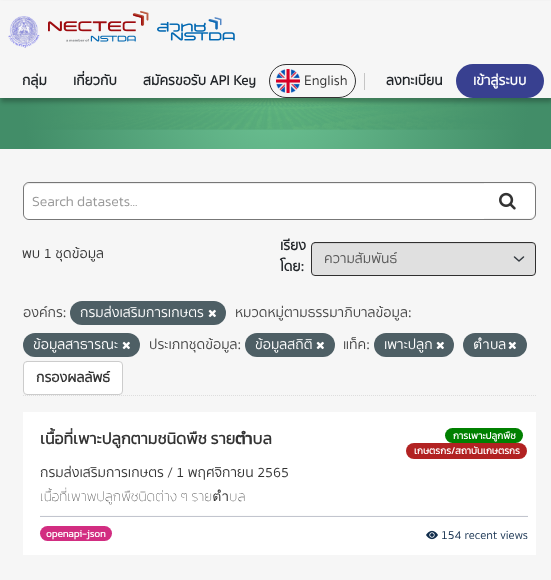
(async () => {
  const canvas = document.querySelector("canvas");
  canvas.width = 551;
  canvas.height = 580;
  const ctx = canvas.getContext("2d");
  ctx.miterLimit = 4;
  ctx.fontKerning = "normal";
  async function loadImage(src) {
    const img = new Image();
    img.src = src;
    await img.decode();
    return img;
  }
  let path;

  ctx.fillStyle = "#f6f6f6";
  ctx.fillRect(0, 0, 551, 580);
  ctx.drawImage(await loadImage("img/5.png"), 0, 98, 551, 51);
  ctx.fillStyle = "rgba(0, 0, 0, 0.25)";
  ctx.filter = "blur(2px)";
  ctx.beginPath();
  ctx.rect(1, 4, 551, 98);
  ctx.fill();
  ctx.filter = "none";
  ctx.fillStyle = "#f6f6f6";
  ctx.fillRect(0, 1, 551, 97);
  ctx.drawImage(await loadImage("img/1.png"), 8, 16, 32, 32);
  ctx.drawImage(await loadImage("img/2.png"), 48, 10, 101, 32);
  ctx.drawImage(await loadImage("img/3.png"), 157, 17, 78, 24);
  ctx.beginPath();
  ctx.roundRect(269.5, 64.5, 86, 33, 16.5);
  ctx.strokeStyle = "#333333";
  ctx.stroke();
  ctx.drawImage(await loadImage("img/4.png"), 276, 69, 24, 24);
  ctx.fillStyle = "#c5c5c5";
  ctx.fillRect(364, 73, 1, 17);
  ctx.fillStyle = "#384090";
  ctx.beginPath();
  ctx.roundRect(456, 64, 88, 34, 17);
  ctx.fill();
  path = new Path2D("M23 395.5H536");
  ctx.strokeStyle = "#dddddd";
  ctx.setLineDash([1, 1]);
  ctx.stroke(path);
  ctx.beginPath();
  ctx.roundRect(23.5, 182.5, 512, 37, 5.5);
  ctx.strokeStyle = "#777777";
  ctx.setLineDash([]);
  ctx.stroke();
  ctx.fillStyle = "#ffffff";
  ctx.beginPath();
  ctx.roundRect(24, 183, 460, 36, [6, 0, 0, 6]);
  ctx.fill();
  ctx.fillStyle = "rgba(0, 0, 0, 0.07)";
  path = new Path2D("M30 184H484V183H30C26 183 24 186 24 190C24 187 27 184 30 184Z");
  ctx.fill(path);
  ctx.fillStyle = "#ffffff";
  ctx.beginPath();
  ctx.roundRect(483, 184, 52, 34, [0, 6, 6, 0]);
  ctx.fill();
  ctx.drawImage(await loadImage("img/6.png"), 499, 192, 17, 18);
  ctx.fillStyle = "#e0e0e0";
  ctx.beginPath();
  ctx.roundRect(312, 243, 223, 32, 3);
  ctx.fill();
  path = new Path2D("M514.5 257L519 261L523.5 257");
  ctx.strokeStyle = "#343a40";
  ctx.lineWidth = 1.5;
  ctx.lineCap = "round";
  ctx.lineJoin = "round";
  ctx.stroke(path);
  ctx.fillStyle = "rgba(0, 0, 0, 0.07)";
  path = new Path2D("M315 244H532C534 244 535 245 535 247V246C535 244 534 243 532 243H315C313 243 312 244 312 246V247C312 245 313 244 315 244Z");
  ctx.fill(path);
  ctx.beginPath();
  ctx.roundRect(311.5, 242.5, 224, 33, 3.5);
  ctx.strokeStyle = "#302f2f";
  ctx.lineWidth = 1;
  ctx.lineJoin = "miter";
  ctx.stroke();
  ctx.fillStyle = "#4e5f65";
  ctx.beginPath();
  ctx.roundRect(70, 301, 156, 24, 12);
  ctx.fill();
  ctx.drawImage(await loadImage("img/7.png"), 208, 309, 8, 9);
  ctx.beginPath();
  ctx.roundRect(23, 333, 117, 24, 12);
  ctx.fill();
  ctx.drawImage(await loadImage("img/7.png"), 122, 341, 8, 9);
  ctx.beginPath();
  ctx.roundRect(245, 333, 90, 24, 12);
  ctx.fill();
  ctx.drawImage(await loadImage("img/7.png"), 316, 341, 8, 9);
  ctx.beginPath();
  ctx.roundRect(374, 333, 80, 24, 12);
  ctx.fill();
  ctx.drawImage(await loadImage("img/7.png"), 436, 341, 8, 9);
  ctx.beginPath();
  ctx.roundRect(463, 333, 64, 24, 12);
  ctx.fill();
  ctx.drawImage(await loadImage("img/7.png"), 508, 341, 8, 9);
  ctx.fillStyle = "#ffffff";
  ctx.beginPath();
  ctx.roundRect(23.5, 361.5, 99, 33, 3.5);
  ctx.fill();
  ctx.strokeStyle = "#cccccc";
  ctx.stroke();
  ctx.fillRect(23, 412, 513, 143);
  ctx.fillStyle = "#008000";
  ctx.beginPath();
  ctx.roundRect(445, 428, 78, 15, 7.5);
  ctx.fill();
  ctx.fillStyle = "#b22222";
  ctx.beginPath();
  ctx.roundRect(406, 443, 121, 16, 8);
  ctx.fill();
  ctx.fillStyle = "#c2c5ce";
  ctx.fillRect(40, 516, 488, 1);
  ctx.fillStyle = "#fbfbfb";
  ctx.fillRect(40, 515, 488, 1);
  ctx.fillStyle = "#d22d81";
  ctx.beginPath();
  ctx.roundRect(40, 526, 72, 15, 7.5);
  ctx.fill();
  ctx.drawImage(await loadImage("img/8.png"), 426, 530, 12, 10);
  ctx.font = "bold 14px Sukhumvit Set";
  ctx.fillStyle = "#212529";
  for (const [text, x, y] of [
    ["กลุ่ม", 22, 85],
    ["เกี่ยวกับ", 73, 85],
    ["สมัครขอรับ API Key", 143, 85],
  ]) {
    ctx.fillText(text, x, y);
  }
  ctx.font = "14px Sukhumvit Set";
  ctx.fillStyle = "#333333";
  ctx.fillText("English", 304, 85);
  ctx.font = "bold 14px Sukhumvit Set";
  ctx.fillStyle = "#212529";
  ctx.fillText("ลงทะเบียน", 386, 85);
  ctx.fillStyle = "#ffffff";
  ctx.fillText("เข้าสู่ระบบ", 473, 85);
  ctx.font = "300 14px Kanit";
  ctx.fillStyle = "#999999";
  ctx.fillText("Search datasets...", 32, 206);
  ctx.font = "14px Sukhumvit Set";
  ctx.fillStyle = "#333333";
  ctx.fillText("พบ 1 ชุดข้อมูล", 22, 258);
  ctx.font = "bold 14px Sukhumvit Set";
  ctx.fillStyle = "#212529";
  ctx.fillText("เรียง", 280, 250);
  ctx.fillText("โดย:", 280, 271);
  ctx.font = "14px Sukhumvit Set";
  ctx.fillStyle = "#555555";
  ctx.fillText("ความสัมพันธ์", 324, 263);
  ctx.fillStyle = "#444444";
  ctx.fillText("องค์กร:", 23, 317);
  ctx.fillStyle = "#ffffff";
  ctx.fillText("กรมส่งเสริมการเกษตร", 80, 317);
  ctx.fillStyle = "#444444";
  ctx.fillText("หมวดหมู่ตามธรรมาภิบาลข้อมูล:", 235, 317);
  ctx.fillStyle = "#ffffff";
  ctx.fillText("ข้อมูลสาธารณะ", 33, 349);
  ctx.fillStyle = "#444444";
  ctx.fillText("ประเภทชุดข้อมูล:", 149, 349);
  ctx.fillStyle = "#ffffff";
  ctx.fillText("ข้อมูลสถิติ", 255, 349);
  ctx.fillStyle = "#444444";
  ctx.fillText("แท็ค:", 343, 349);
  ctx.fillStyle = "#ffffff";
  ctx.fillText("เพาะปลูก", 384, 349);
  ctx.fillText("ตำบล", 473, 349);
  ctx.font = "bold 14px Sukhumvit Set";
  ctx.fillStyle = "#333333";
  ctx.fillText("กรองผลลัพธ์", 36, 382);
  ctx.font = "bold 16px Kanit";
  ctx.fillText("เนื้อที่เพาะปลูกตามชนิดพืช รายตำบล", 40, 444);
  ctx.font = "bold 9.75px Kanit";
  ctx.fillStyle = "#ffffff";
  ctx.fillText("การเพาะปลูกพืช", 453, 439);
  ctx.fillText("เกษตรกร/สถาบันเกษตรกร", 414, 454);
  ctx.font = "14px Sukhumvit Set";
  ctx.fillStyle = "#333333";
  ctx.fillText("กรมส่งเสริมการเกษตร / 1 พฤศจิกายน 2565", 40, 477);
  ctx.font = "100 14px Kanit";
  ctx.fillText("เนื้อที่เพาพปลูกพืชนิดต่าง ๆ รายตำบล", 40, 501);
  ctx.font = "bold 10px Kanit";
  ctx.fillStyle = "#ffffff";
  ctx.fillText("openapi-json", 46, 537);
  ctx.font = "12px Sukhumvit Set";
  ctx.fillStyle = "#112d4c";
  ctx.fillText("154 recent views", 441, 539);
})();
